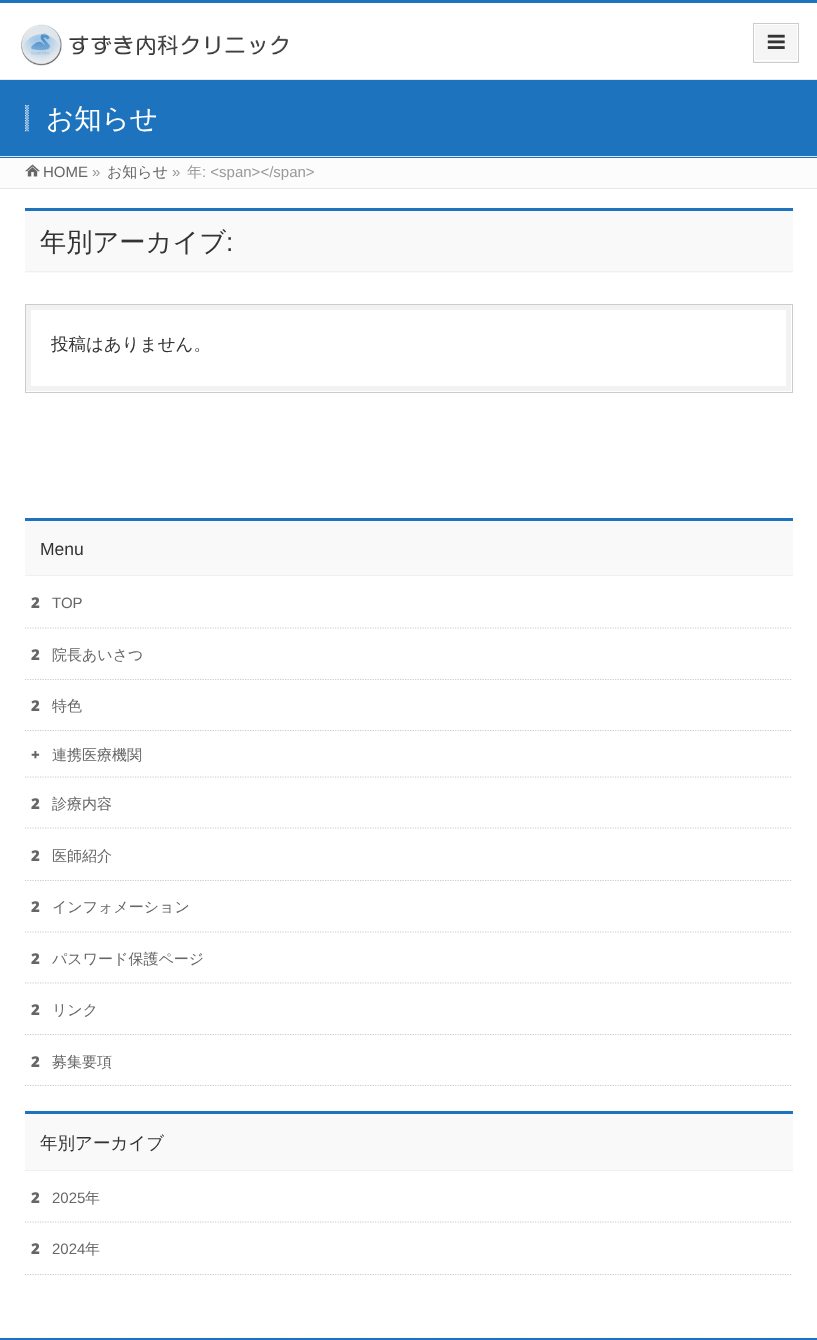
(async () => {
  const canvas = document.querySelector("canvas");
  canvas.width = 817;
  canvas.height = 1340;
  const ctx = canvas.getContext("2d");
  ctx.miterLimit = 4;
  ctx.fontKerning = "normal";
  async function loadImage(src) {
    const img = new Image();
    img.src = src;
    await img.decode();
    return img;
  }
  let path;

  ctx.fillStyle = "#ffffff";
  ctx.fillRect(0, 0, 817, 1340);
  ctx.fillStyle = "#1e73be";
  ctx.fillRect(0, 0, 817, 3);
  ctx.drawImage(await loadImage("img/1.png"), 20, 24, 268, 42);
  ctx.fillStyle = "#f5f5f5";
  ctx.fillRect(754, 25, 44, 37);
  ctx.strokeStyle = "#fefefe";
  ctx.strokeRect(754.5, 24.5, 43, 36);
  ctx.strokeStyle = "#cccccc";
  ctx.strokeRect(753.5, 23.5, 45, 39);
  ctx.drawImage(await loadImage("img/2.png"), 767, 34, 18, 15);
  for (const [x, y, w, h, color] of [
    [0, 80, 817, 78, "#1e73be"],
    [0, 79, 817, 1, "#e9e9e9"],
    [0, 156, 817, 1, "#e9e9e9"],
  ]) {
    ctx.fillStyle = color;
    ctx.fillRect(x, y, w, h);
  }
  ctx.drawImage(await loadImage("img/3.png"), 25, 105, 4, 27);
  ctx.fillStyle = "#fcfcfc";
  ctx.fillRect(0, 158, 817, 30);
  ctx.drawImage(await loadImage("img/4.png"), 25, 164, 15, 13);
  for (const [x, y, w, h, color] of [
    [0, 188, 817, 1, "#e9e9e9"],
    [25, 211, 768, 62, "#f9f9f9"],
    [25, 208, 768, 3, "#1e73be"],
    [25, 271, 768, 1, "#efefef"],
  ]) {
    ctx.fillStyle = color;
    ctx.fillRect(x, y, w, h);
  }
  ctx.strokeStyle = "#f2f2f2";
  ctx.lineWidth = 5;
  ctx.strokeRect(28.5, 307.5, 760, 81);
  ctx.strokeStyle = "#cccccc";
  ctx.lineWidth = 1;
  ctx.strokeRect(25.5, 304.5, 767, 88);
  for (const [x, y, w, h, color] of [
    [25, 521, 768, 54, "#f9f9f9"],
    [25, 518, 768, 3, "#1e73be"],
    [25, 575, 768, 1, "#efefef"],
  ]) {
    ctx.fillStyle = color;
    ctx.fillRect(x, y, w, h);
  }
  path = new Path2D("M25 628H792.5");
  ctx.lineWidth = 1.2;
  ctx.setLineDash([1.25, 1.25]);
  ctx.stroke(path);
  path = new Path2D("M25 679.5H792.5");
  ctx.stroke(path);
  path = new Path2D("M25 777H792.5");
  ctx.stroke(path);
  path = new Path2D("M25 730.5H792.5");
  ctx.stroke(path);
  path = new Path2D("M25 828H792.5");
  ctx.stroke(path);
  path = new Path2D("M25 880.5H792.5");
  ctx.stroke(path);
  path = new Path2D("M25 932H792.5");
  ctx.stroke(path);
  path = new Path2D("M25 983H792.5");
  ctx.stroke(path);
  path = new Path2D("M25 1034.5H792.5");
  ctx.stroke(path);
  path = new Path2D("M25 1085.5H792.5");
  ctx.stroke(path);
  for (const [x, y, w, h, color] of [
    [25, 1114, 768, 56, "#f9f9f9"],
    [25, 1111, 768, 3, "#1e73be"],
    [25, 1170, 768, 1, "#efefef"],
  ]) {
    ctx.fillStyle = color;
    ctx.fillRect(x, y, w, h);
  }
  path = new Path2D("M25 1222H792.5");
  ctx.stroke(path);
  path = new Path2D("M25 1274.5H792.5");
  ctx.stroke(path);
  ctx.drawImage(await loadImage("img/5.png"), 0, 1337, 817, 1);
  ctx.fillStyle = "#1e73be";
  ctx.fillRect(0, 1338, 817, 2);
  ctx.font = "500 27.5px WenQuanYi Zen Hei";
  ctx.fillStyle = "#ffffff";
  ctx.fillText("お知らせ", 46, 128);
  ctx.font = "15px Liberation Sans";
  ctx.fillStyle = "#666666";
  ctx.fillText("HOME", 43, 177);
  ctx.fillStyle = "#999999";
  ctx.fillText("»", 92, 177);
  ctx.font = "500 15px WenQuanYi Zen Hei";
  ctx.fillStyle = "#666666";
  ctx.fillText("お知らせ", 107, 177);
  ctx.font = "15px Liberation Sans";
  ctx.fillStyle = "#999999";
  ctx.fillText("»", 172, 177);
  ctx.font = "500 15px WenQuanYi Zen Hei";
  ctx.fillText("年", 187, 177);
  ctx.font = "15px Liberation Sans";
  ctx.fillText(": <span><\/span>", 202, 177);
  ctx.font = "500 26.25px WenQuanYi Zen Hei";
  ctx.fillStyle = "#333333";
  ctx.fillText("年別アーカイブ", 40, 251);
  ctx.font = "26.25px Liberation Sans";
  ctx.fillText(":", 226, 251);
  ctx.font = "500 17.5px WenQuanYi Zen Hei";
  ctx.fillText("投稿はありません。", 51, 350);
  ctx.font = "17.5px Liberation Sans";
  ctx.fillText("Menu", 40, 555);
  ctx.font = "900 15px Noto Sans";
  ctx.fillStyle = "#666666";
  ctx.fillText("2", 31, 608);
  ctx.font = "15px Liberation Sans";
  ctx.fillText("TOP", 52, 608);
  ctx.font = "900 15px Noto Sans";
  ctx.fillText("2", 31, 660);
  ctx.font = "500 15px WenQuanYi Zen Hei";
  ctx.fillText("院長あいさつ", 52, 660);
  ctx.font = "900 15px Noto Sans";
  ctx.fillText("2", 31, 711);
  ctx.font = "500 15px WenQuanYi Zen Hei";
  ctx.fillText("特色", 52, 711);
  ctx.font = "900 15px Noto Sans";
  ctx.fillText("+", 31, 760);
  ctx.font = "500 15px WenQuanYi Zen Hei";
  ctx.fillText("連携医療機関", 52, 760);
  ctx.font = "900 15px Noto Sans";
  ctx.fillText("2", 31, 809);
  ctx.font = "500 15px WenQuanYi Zen Hei";
  ctx.fillText("診療内容", 52, 809);
  ctx.font = "900 15px Noto Sans";
  ctx.fillText("2", 31, 861);
  ctx.font = "500 15px WenQuanYi Zen Hei";
  ctx.fillText("医師紹介", 52, 861);
  ctx.font = "900 15px Noto Sans";
  ctx.fillText("2", 31, 912);
  ctx.font = "500 15px WenQuanYi Zen Hei";
  ctx.fillText("インフォメーション", 52, 912);
  ctx.font = "900 15px Noto Sans";
  ctx.fillText("2", 31, 964);
  ctx.font = "500 15px WenQuanYi Zen Hei";
  ctx.fillText("パスワード保護ページ", 52, 964);
  ctx.font = "900 15px Noto Sans";
  ctx.fillText("2", 31, 1015);
  ctx.font = "500 15px WenQuanYi Zen Hei";
  ctx.fillText("リンク", 52, 1015);
  ctx.font = "900 15px Noto Sans";
  ctx.fillText("2", 31, 1067);
  ctx.font = "500 15px WenQuanYi Zen Hei";
  ctx.fillText("募集要項", 52, 1067);
  ctx.font = "500 17.5px WenQuanYi Zen Hei";
  ctx.fillStyle = "#333333";
  ctx.fillText("年別アーカイブ", 40, 1149);
  ctx.font = "900 15px Noto Sans";
  ctx.fillStyle = "#666666";
  ctx.fillText("2", 31, 1203);
  ctx.font = "15px Liberation Sans";
  ctx.fillText("2025", 52, 1203);
  ctx.font = "500 15px WenQuanYi Zen Hei";
  ctx.fillText("年", 85, 1203);
  ctx.font = "900 15px Noto Sans";
  ctx.fillText("2", 31, 1254);
  ctx.font = "15px Liberation Sans";
  ctx.fillText("2024", 52, 1254);
  ctx.font = "500 15px WenQuanYi Zen Hei";
  ctx.fillText("年", 85, 1254);
})();
